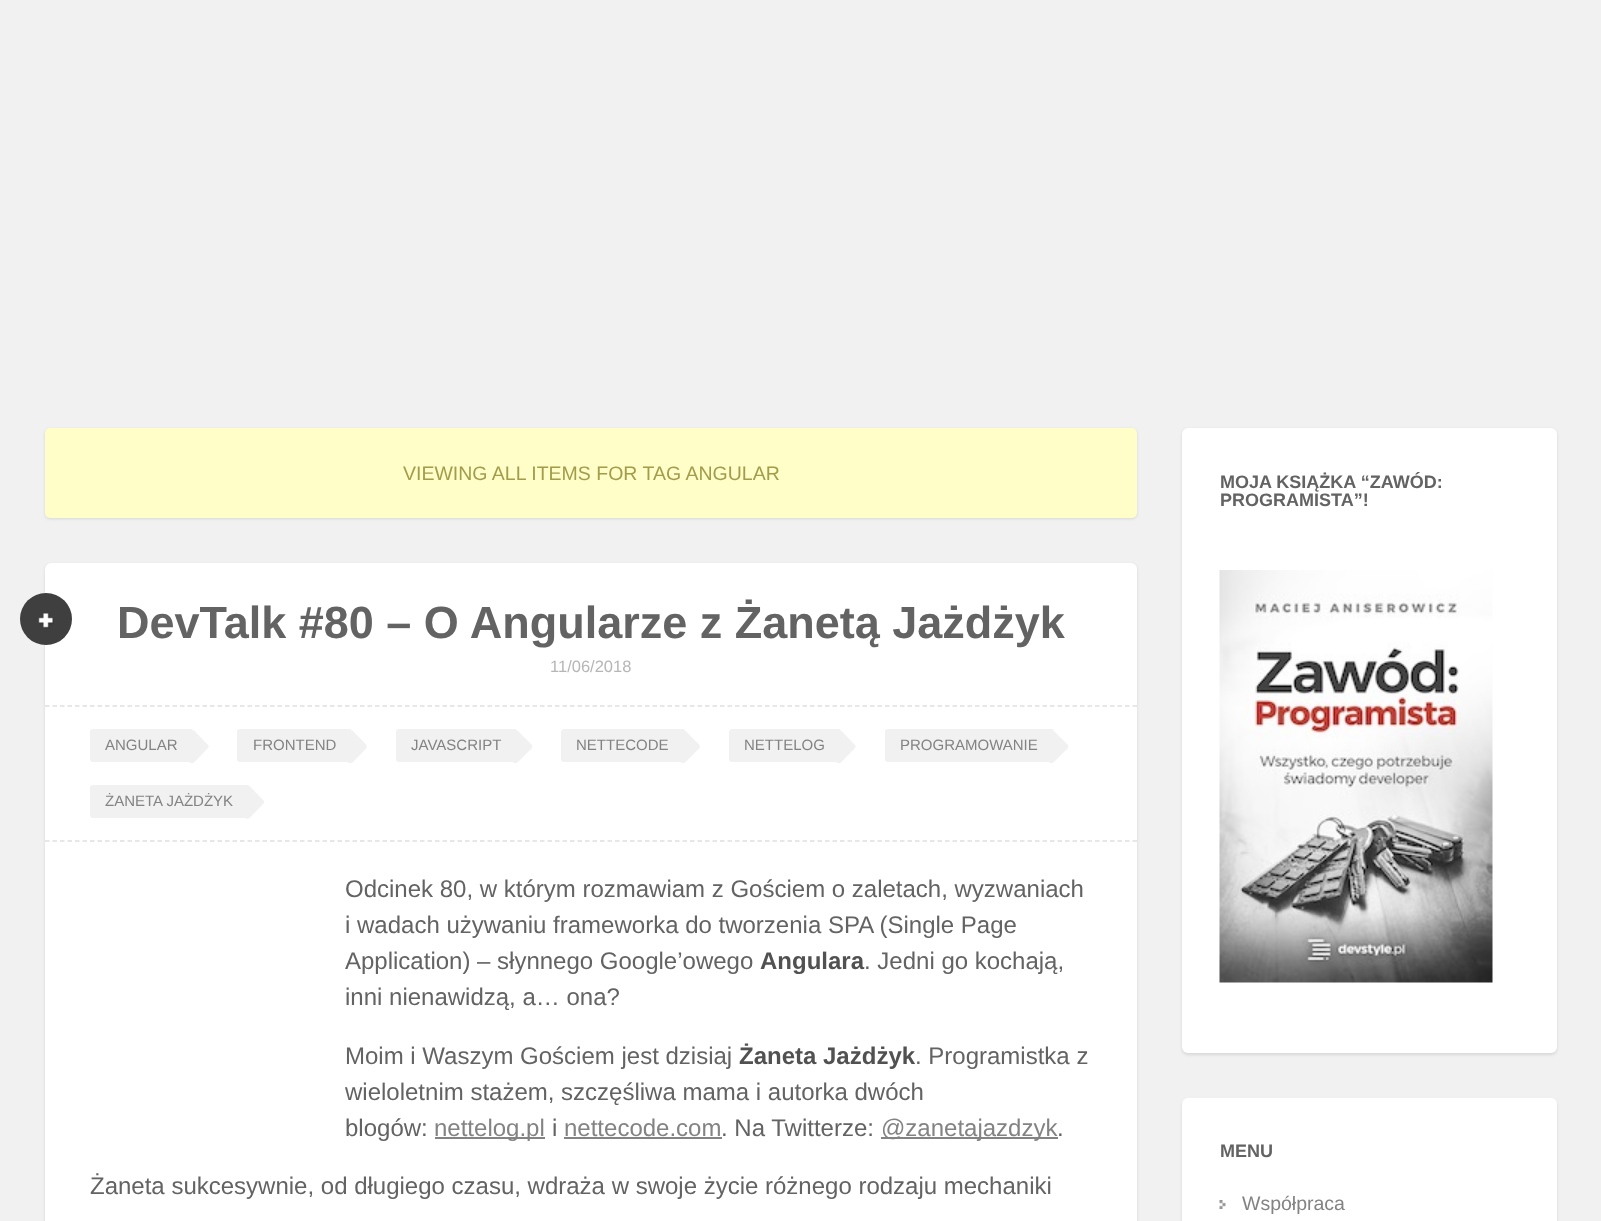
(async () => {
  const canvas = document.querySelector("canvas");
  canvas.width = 1601;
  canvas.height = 1221;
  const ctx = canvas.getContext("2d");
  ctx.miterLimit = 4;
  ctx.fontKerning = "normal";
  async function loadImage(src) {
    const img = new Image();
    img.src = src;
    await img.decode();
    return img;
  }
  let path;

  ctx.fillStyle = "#f1f1f1";
  ctx.fillRect(0, 0, 1601, 1221);
  ctx.fillStyle = "rgba(0, 0, 0, 0.1)";
  ctx.filter = "blur(1.5px)";
  ctx.beginPath();
  ctx.roundRect(45, 429, 1092, 90, 5);
  ctx.fill();
  ctx.filter = "none";
  ctx.fillStyle = "#fffdc8";
  ctx.beginPath();
  ctx.roundRect(45, 428, 1092, 90, 5);
  ctx.fill();
  ctx.fillStyle = "rgba(0, 0, 0, 0.1)";
  ctx.filter = "blur(1.5px)";
  ctx.beginPath();
  ctx.roundRect(45, 564, 1092, 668, 6);
  ctx.fill();
  ctx.filter = "none";
  ctx.fillStyle = "#ffffff";
  ctx.beginPath();
  ctx.roundRect(45, 563, 1092, 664, 6);
  ctx.fill();
  ctx.fillStyle = "#3f3f3f";
  ctx.beginPath();
  ctx.arc(46, 619, 26, 0, Math.PI * 2);
  ctx.fill();
  ctx.drawImage(await loadImage("img/1.png"), 38, 613, 16, 16);
  path = new Path2D("M45 706H1137");
  ctx.strokeStyle = "#e0e0e0";
  ctx.lineWidth = 1.5;
  ctx.setLineDash([4.5, 3]);
  ctx.stroke(path);
  path = new Path2D("M45 841H1137");
  ctx.stroke(path);
  ctx.fillStyle = "#f1f1f1";
  path = new Path2D("M194 730.5L207.5 744.5C209 745.5 209 747.5 207.5 748.5L194 762.5C192.5 763.5 191 763.5 189.5 762.5L176 748.5C174.5 747.5 174.5 745.5 176 744.5L189.5 730.5C191 729.5 192.5 729.5 194 730.5Z");
  ctx.fill(path);
  ctx.beginPath();
  ctx.roundRect(90, 729, 102, 33, [3, 0, 0, 3]);
  ctx.fill();
  path = new Path2D("M352.5 730.5L366 744.5C367 745.5 367 747.5 366 748.5L352.5 762.5C351 763.5 349 763.5 348 762.5L334 748.5C333 747.5 333 745.5 334 744.5L348 730.5C349 729.5 351 729.5 352.5 730.5Z");
  ctx.fill(path);
  ctx.beginPath();
  ctx.roundRect(237, 729, 114, 33, [3, 0, 0, 3]);
  ctx.fill();
  path = new Path2D("M517.5 730.5L531.5 744.5C532.5 745.5 532.5 747.5 531.5 748.5L517.5 762.5C516.5 763.5 514.5 763.5 513.5 762.5L499.5 748.5C498.5 747.5 498.5 745.5 499.5 744.5L513.5 730.5C514.5 729.5 516.5 729.5 517.5 730.5Z");
  ctx.fill(path);
  ctx.beginPath();
  ctx.roundRect(396, 729, 120, 33, [3, 0, 0, 3]);
  ctx.fill();
  path = new Path2D("M685 730.5L699 744.5C700 745.5 700 747.5 699 748.5L685 762.5C684 763.5 682 763.5 681 762.5L667 748.5C666 747.5 666 745.5 667 744.5L681 730.5C682 729.5 684 729.5 685 730.5Z");
  ctx.fill(path);
  ctx.beginPath();
  ctx.roundRect(561, 729, 123, 33, [3, 0, 0, 3]);
  ctx.fill();
  path = new Path2D("M841 730.5L854.5 744.5C856 745.5 856 747.5 854.5 748.5L841 762.5C840 763.5 838 763.5 836.5 762.5L823 748.5C821.5 747.5 821.5 745.5 823 744.5L836.5 730.5C838 729.5 840 729.5 841 730.5Z");
  ctx.fill(path);
  ctx.beginPath();
  ctx.roundRect(729, 729, 111, 33, [3, 0, 0, 3]);
  ctx.fill();
  path = new Path2D("M1053.5 730.5L1067.5 744.5C1068.5 745.5 1068.5 747.5 1067.5 748.5L1053.5 762.5C1052.5 763.5 1050.5 763.5 1049.5 762.5L1035.5 748.5C1034.5 747.5 1034.5 745.5 1035.5 744.5L1049.5 730.5C1050.5 729.5 1052.5 729.5 1053.5 730.5Z");
  ctx.fill(path);
  ctx.beginPath();
  ctx.roundRect(885, 729, 168, 33, [3, 0, 0, 3]);
  ctx.fill();
  path = new Path2D("M249.5 786L263 800C264.5 801 264.5 803 263 804L249.5 818C248.5 819 246.5 819 245 818L231.5 804C230.5 803 230.5 801 231.5 800L245 786C246.5 785 248.5 785 249.5 786Z");
  ctx.fill(path);
  ctx.beginPath();
  ctx.roundRect(90, 785, 158, 33, [3, 0, 0, 3]);
  ctx.fill();
  for (const [x, y, w, h, color] of [
    [435, 1137, 110, 2, "#838383"],
    [564, 1137, 158, 2, "#838383"],
    [881, 1137, 177, 2, "#838383"],
  ]) {
    ctx.fillStyle = color;
    ctx.fillRect(x, y, w, h);
  }
  ctx.fillStyle = "rgba(0, 0, 0, 0.1)";
  ctx.filter = "blur(1.5px)";
  ctx.beginPath();
  ctx.roundRect(1182, 429, 375, 626, 6);
  ctx.fill();
  ctx.filter = "none";
  ctx.fillStyle = "#ffffff";
  ctx.beginPath();
  ctx.roundRect(1182, 428, 375, 625, 6);
  ctx.fill();
  ctx.drawImage(await loadImage("img/2.png"), 1219, 570, 274, 413);
  ctx.fillStyle = "rgba(0, 0, 0, 0.1)";
  ctx.filter = "blur(1.5px)";
  ctx.beginPath();
  ctx.roundRect(1182, 1100, 375, 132, 6);
  ctx.fill();
  ctx.filter = "none";
  ctx.fillStyle = "#ffffff";
  ctx.beginPath();
  ctx.roundRect(1182, 1098, 375, 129, 6);
  ctx.fill();
  ctx.drawImage(await loadImage("img/3.png"), 1219, 1200, 7, 9);
  ctx.font = "19.5px Liberation Sans";
  ctx.fillStyle = "#a39d4b";
  ctx.fillText("VIEWING ALL ITEMS FOR TAG ANGULAR", 403, 480);
  ctx.font = "bold 45px Liberation Sans";
  ctx.fillStyle = "#636363";
  ctx.fillText("DevTalk #80 – O Angularze z Żanetą Jażdżyk", 117, 638);
  ctx.font = "16.5px Liberation Sans";
  ctx.fillStyle = "#b6b6b6";
  ctx.fillText("11/06/2018", 550, 672);
  ctx.font = "15px Liberation Sans";
  ctx.fillStyle = "#838383";
  for (const [text, x, y] of [
    ["ANGULAR", 105, 750],
    ["FRONTEND", 253, 750],
    ["JAVASCRIPT", 411, 750],
    ["NETTECODE", 576, 750],
    ["NETTELOG", 744, 750],
    ["PROGRAMOWANIE", 900, 750],
    ["ŻANETA JAŻDŻYK", 105, 806],
  ]) {
    ctx.fillText(text, x, y);
  }
  ctx.font = "24px Liberation Sans";
  ctx.fillStyle = "#636363";
  for (const [text, x, y] of [
    ["Odcinek 80, w którym rozmawiam z Gościem o zaletach, wyzwaniach", 345, 897],
    ["i wadach używaniu frameworka do tworzenia SPA (Single Page", 345, 933],
    ["Application) – słynnego Google’owego", 345, 969],
  ]) {
    ctx.fillText(text, x, y);
  }
  ctx.font = "bold 24px Liberation Sans";
  ctx.fillStyle = "#515151";
  ctx.fillText("Angulara", 760, 969);
  ctx.font = "24px Liberation Sans";
  ctx.fillStyle = "#636363";
  for (const [text, x, y] of [
    [". Jedni go kochają,", 864, 969],
    ["inni nienawidzą, a… ona?", 345, 1005],
    ["Moim i Waszym Gościem jest dzisiaj", 345, 1064],
  ]) {
    ctx.fillText(text, x, y);
  }
  ctx.font = "bold 24px Liberation Sans";
  ctx.fillStyle = "#515151";
  ctx.fillText("Żaneta Jażdżyk", 739, 1064);
  ctx.font = "24px Liberation Sans";
  ctx.fillStyle = "#636363";
  for (const [text, x, y] of [
    [". Programistka z", 915, 1064],
    ["wieloletnim stażem, szczęśliwa mama i autorka dwóch", 345, 1100],
    ["blogów:", 345, 1136],
  ]) {
    ctx.fillText(text, x, y);
  }
  ctx.fillStyle = "#838383";
  ctx.fillText("nettelog.pl", 434, 1136);
  ctx.fillStyle = "#636363";
  ctx.fillText("i", 552, 1136);
  ctx.fillStyle = "#838383";
  ctx.fillText("nettecode.com", 564, 1136);
  ctx.fillStyle = "#636363";
  ctx.fillText(". Na Twitterze:", 721, 1136);
  ctx.fillStyle = "#838383";
  ctx.fillText("@zanetajazdzyk", 881, 1136);
  ctx.fillStyle = "#636363";
  ctx.fillText(".", 1057, 1136);
  ctx.fillText("Żaneta sukcesywnie, od długiego czasu, wdraża w swoje życie różnego rodzaju mechaniki", 90, 1194);
  ctx.font = "bold 18px Liberation Sans";
  for (const [text, x, y] of [
    ["MOJA KSIĄŻKA “ZAWÓD:", 1220, 488],
    ["PROGRAMISTA”!", 1220, 506],
    ["MENU", 1220, 1157],
  ]) {
    ctx.fillText(text, x, y);
  }
  ctx.font = "19.5px Liberation Sans";
  ctx.fillStyle = "#838383";
  ctx.fillText("Współpraca", 1242, 1210);
})();
